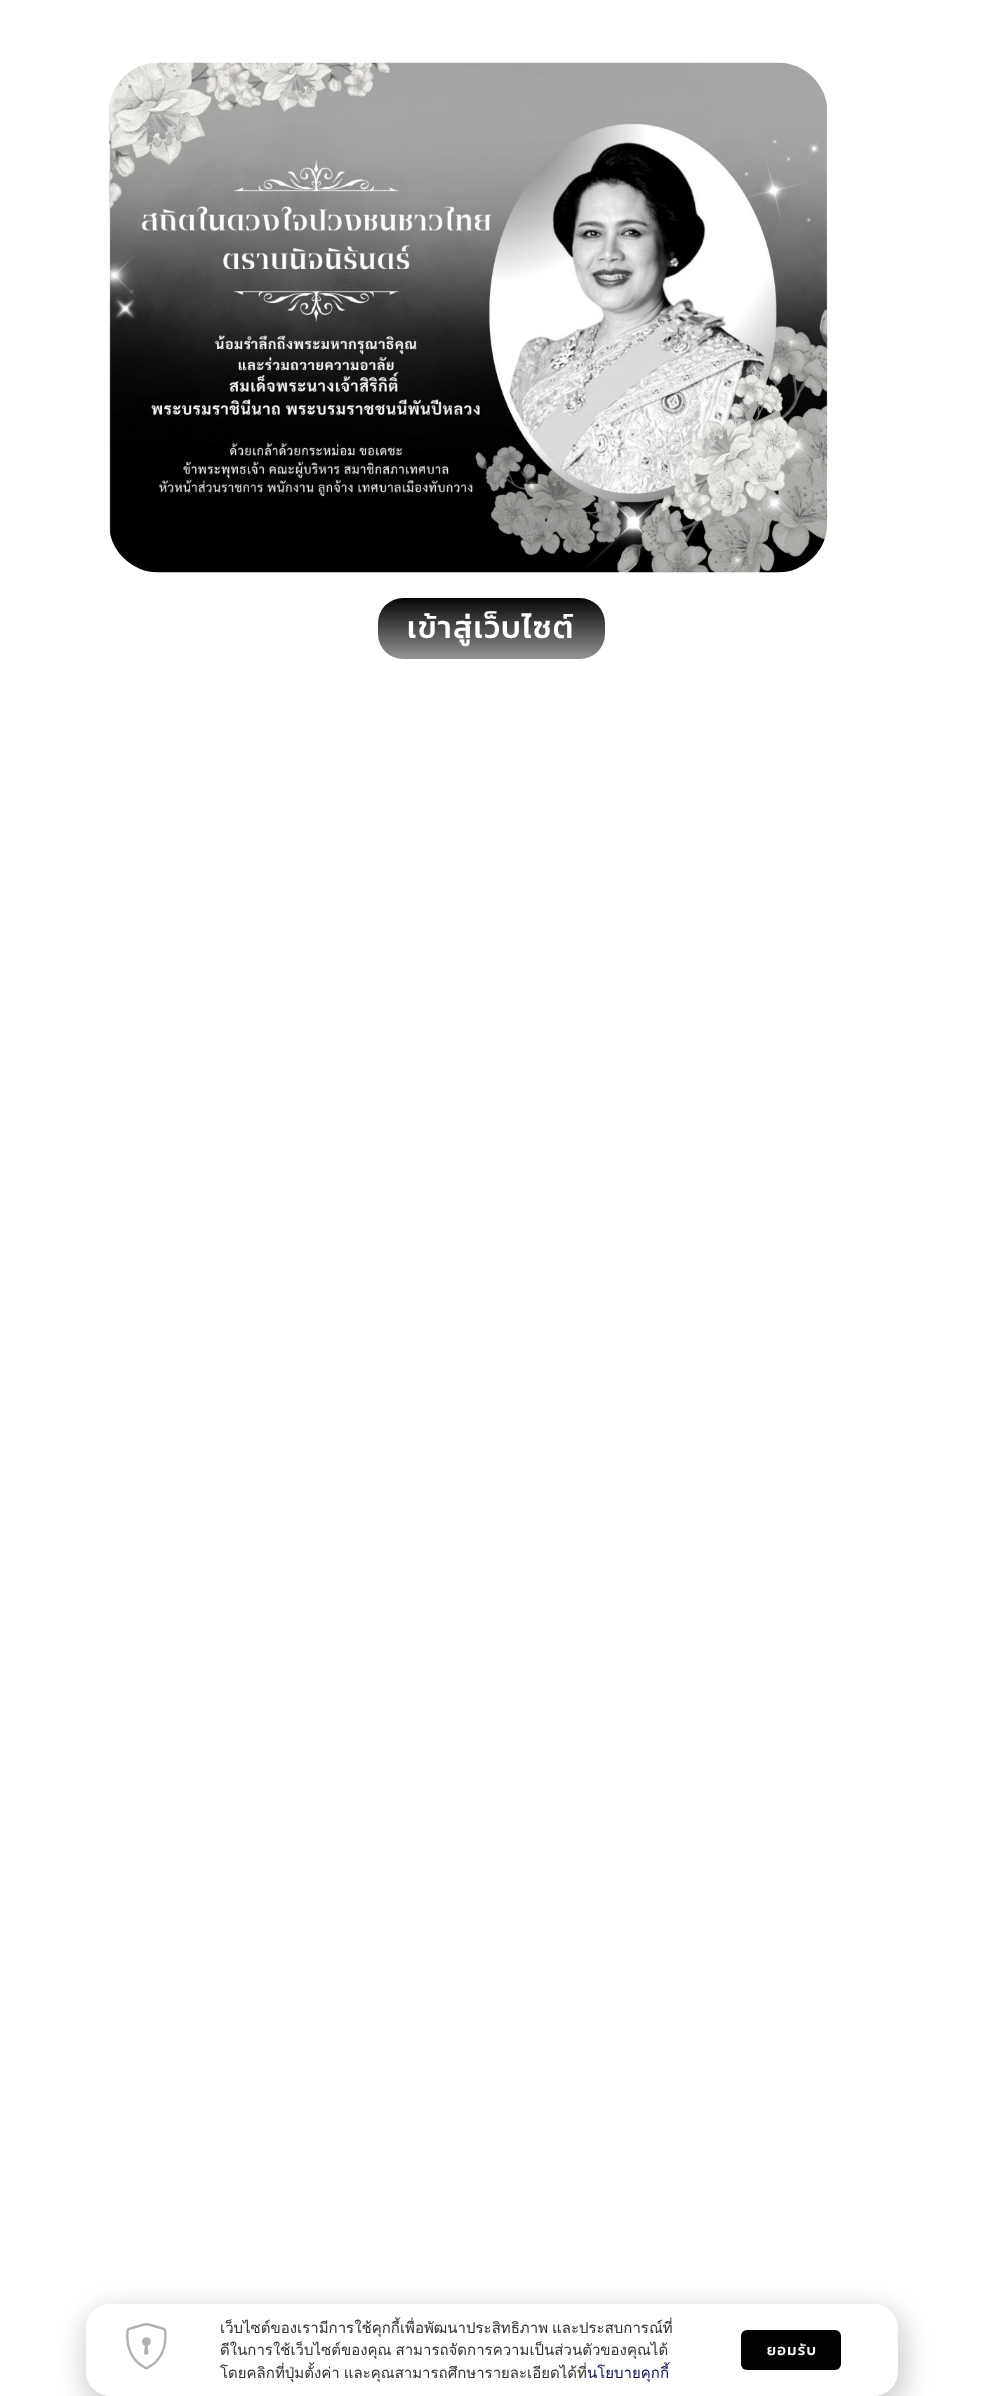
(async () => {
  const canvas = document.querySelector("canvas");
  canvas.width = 982;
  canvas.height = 2396;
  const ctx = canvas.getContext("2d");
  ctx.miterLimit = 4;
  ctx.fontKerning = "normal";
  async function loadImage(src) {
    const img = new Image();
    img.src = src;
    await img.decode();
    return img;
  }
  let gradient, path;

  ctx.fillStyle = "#ffffff";
  ctx.fillRect(0, 0, 982, 2396);
  ctx.drawImage(await loadImage("img/1.png"), 108, 62, 720, 511);
  gradient = ctx.createLinearGradient(491, 598, 491, 659);
  gradient.addColorStop(0, "#050504");
  gradient.addColorStop(1, "#949494");
  ctx.fillStyle = gradient;
  ctx.beginPath();
  ctx.roundRect(378, 598, 227, 61, 25);
  ctx.fill();
  ctx.save();
  path = new Path2D("M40 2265H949V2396H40ZM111 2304H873C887 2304 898 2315 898 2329V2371C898 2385 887 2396 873 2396H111C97 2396 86 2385 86 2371V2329C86 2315 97 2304 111 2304Z");
  ctx.clip(path, "evenodd");
  ctx.fillStyle = "rgba(0, 0, 0, 0.2)";
  ctx.filter = "blur(14.5px)";
  ctx.beginPath();
  ctx.roundRect(85, 2310, 819, 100, 29);
  ctx.fill();
  ctx.filter = "none";
  ctx.restore();
  ctx.fillStyle = "rgba(255, 255, 255, 0.87)";
  ctx.beginPath();
  ctx.roundRect(86, 2304, 812, 92, 25);
  ctx.fill();
  ctx.drawImage(await loadImage("img/2.png"), 126, 2323, 41, 47);
  ctx.fillStyle = "#020202";
  ctx.beginPath();
  ctx.roundRect(741, 2330, 100, 40, 6);
  ctx.fill();
  ctx.letterSpacing = "1.25px";
  ctx.font = "500 31.25px Kanit";
  ctx.fillStyle = "#ffffff";
  ctx.fillText("เข้าสู่เว็บไซต์", 407, 638);
  ctx.letterSpacing = "0px";
  ctx.wordSpacing = "-1px";
  ctx.font = "15px Loma";
  ctx.fillStyle = "#313131";
  for (const [text, x, y] of [
    ["เว็บไซต์ของเรามีการใช้คุกกี้เพื่อพัฒนาประสิทธิภาพ และประสบการณ์ที่", 220, 2333],
    ["ดีในการใช้เว็บไซต์ของคุณ สามารถจัดการความเป็นส่วนตัวของคุณได้", 220, 2355],
    ["โดยคลิกที่ปุ่มตั้งค่า และคุณสามารถศึกษารายละเอียดได้ที่", 220, 2378],
  ]) {
    ctx.fillText(text, x, y);
  }
  ctx.wordSpacing = "0px";
  ctx.fillStyle = "#0d0d59";
  ctx.fillText("นโยบายคุกกี้", 587, 2378);
  ctx.letterSpacing = "1.25px";
  ctx.font = "500 15px Kanit";
  ctx.fillStyle = "#ffffff";
  ctx.fillText("ยอมรับ", 767, 2355);
})();
